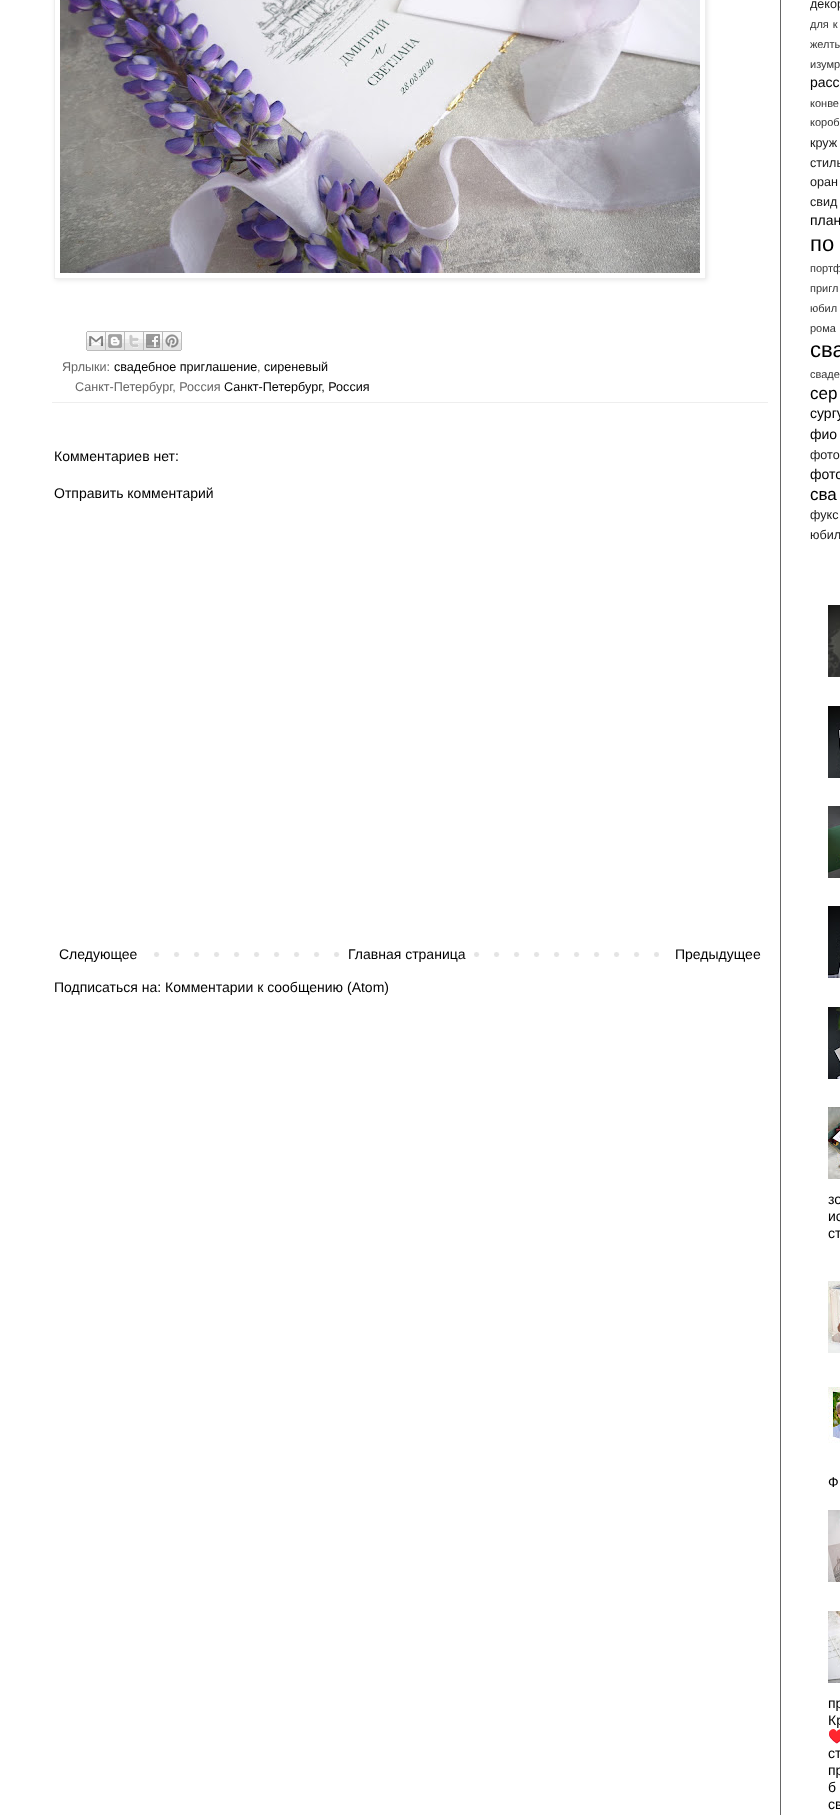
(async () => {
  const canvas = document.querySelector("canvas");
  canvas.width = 840;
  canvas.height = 1815;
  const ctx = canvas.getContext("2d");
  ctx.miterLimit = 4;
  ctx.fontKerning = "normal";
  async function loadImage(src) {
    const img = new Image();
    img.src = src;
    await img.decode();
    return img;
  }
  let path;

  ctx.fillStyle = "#ffffff";
  ctx.fillRect(0, 0, 840, 1815);
  ctx.fillStyle = "#666666";
  ctx.fillRect(780, 0, 1, 1815);
  ctx.save();
  path = new Path2D("M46 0H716V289H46ZM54-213H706V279H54Z");
  ctx.clip(path, "evenodd");
  ctx.fillStyle = "rgba(0, 0, 0, 0.1)";
  ctx.filter = "blur(2.5px)";
  ctx.beginPath();
  ctx.rect(55, -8, 652, 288);
  ctx.fill();
  ctx.filter = "none";
  ctx.restore();
  ctx.strokeStyle = "#eeeeee";
  ctx.strokeRect(54.5, -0.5, 651, 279);
  ctx.drawImage(await loadImage("img/1.png"), 60, 0, 640, 273);
  ctx.fillStyle = "#eeeeee";
  ctx.fillRect(52, 402, 716, 1);
  ctx.drawImage(await loadImage("img/2.png"), 86, 331, 20, 20);
  ctx.drawImage(await loadImage("img/3.png"), 106, 331, 19, 20);
  ctx.drawImage(await loadImage("img/4.png"), 125, 331, 19, 20);
  ctx.drawImage(await loadImage("img/5.png"), 144, 331, 19, 20);
  ctx.drawImage(await loadImage("img/6.png"), 163, 331, 19, 20);
  ctx.drawImage(await loadImage("img/7.png"), 154, 952, 505, 5);
  ctx.fillStyle = "#ffffff";
  ctx.fillRect(354, 952, 106, 5);
  ctx.drawImage(await loadImage("img/8.png"), 828, 605, 12, 72);
  ctx.drawImage(await loadImage("img/9.png"), 828, 706, 12, 72);
  ctx.drawImage(await loadImage("img/10.png"), 828, 806, 12, 72);
  ctx.drawImage(await loadImage("img/11.png"), 828, 906, 12, 72);
  ctx.drawImage(await loadImage("img/12.png"), 828, 1007, 12, 72);
  ctx.drawImage(await loadImage("img/13.png"), 828, 1107, 12, 72);
  ctx.drawImage(await loadImage("img/14.png"), 828, 1281, 12, 72);
  ctx.drawImage(await loadImage("img/15.png"), 828, 1387, 12, 56);
  ctx.drawImage(await loadImage("img/16.png"), 828, 1510, 12, 72);
  ctx.drawImage(await loadImage("img/17.png"), 828, 1611, 12, 72);
  ctx.font = "12.6px Liberation Sans";
  ctx.fillStyle = "#666666";
  ctx.fillText("Ярлыки:", 62, 371);
  ctx.fillStyle = "#000000";
  ctx.fillText("свадебное приглашение", 114, 371);
  ctx.fillStyle = "#666666";
  ctx.fillText(",", 257, 371);
  ctx.fillStyle = "#000000";
  ctx.fillText("сиреневый", 264, 371);
  ctx.fillStyle = "#666666";
  ctx.fillText("Санкт-Петербург, Россия", 75, 391);
  ctx.fillStyle = "#000000";
  ctx.fillText("Санкт-Петербург, Россия", 224, 391);
  ctx.font = "14px Liberation Sans";
  for (const [text, x, y] of [
    ["Комментариев нет:", 54, 461],
    ["Отправить комментарий", 54, 498],
    ["Следующее", 59, 959],
    ["Главная страница", 348, 959],
    ["Предыдущее", 675, 959],
    ["Подписаться на: Комментарии к сообщению (Atom)", 54, 992],
  ]) {
    ctx.fillText(text, x, y);
  }
  ctx.wordSpacing = "3px";
  ctx.font = "12.6px Liberation Sans";
  ctx.fillStyle = "#1a1a1a";
  ctx.fillText("декор", 810, 8);
  ctx.wordSpacing = "1px";
  ctx.font = "11px Liberation Sans";
  ctx.fillStyle = "#333333";
  ctx.fillText("для к", 810, 28);
  ctx.wordSpacing = "0px";
  ctx.fillText("желты", 810, 48);
  ctx.fillText("изумр", 810, 68);
  ctx.wordSpacing = "10px";
  ctx.font = "14px Liberation Sans";
  ctx.fillStyle = "#000000";
  ctx.fillText("расс", 810, 87);
  ctx.wordSpacing = "6px";
  ctx.font = "11px Liberation Sans";
  ctx.fillStyle = "#333333";
  ctx.fillText("конве", 810, 107);
  ctx.wordSpacing = "1px";
  ctx.fillText("короб", 810, 126);
  ctx.wordSpacing = "0px";
  ctx.font = "12.6px Liberation Sans";
  ctx.fillStyle = "#1a1a1a";
  for (const [text, x, y] of [
    ["круж", 810, 147],
    ["стиль", 810, 167],
    ["оран", 810, 186],
    ["свид", 810, 206],
  ]) {
    ctx.fillText(text, x, y);
  }
  ctx.wordSpacing = "34px";
  ctx.font = "14px Liberation Sans";
  ctx.fillStyle = "#000000";
  ctx.fillText("план", 810, 225);
  ctx.wordSpacing = "45px";
  ctx.font = "22px Liberation Sans";
  ctx.fillText("по", 810, 251);
  ctx.wordSpacing = "0px";
  ctx.font = "11px Liberation Sans";
  ctx.fillStyle = "#333333";
  ctx.fillText("портф", 810, 272);
  ctx.wordSpacing = "7px";
  ctx.fillText("пригл", 810, 292);
  ctx.wordSpacing = "0px";
  ctx.fillText("юбил", 810, 312);
  ctx.fillText("рома", 810, 332);
  ctx.wordSpacing = "45px";
  ctx.font = "22px Liberation Sans";
  ctx.fillStyle = "#000000";
  ctx.fillText("сва", 810, 357);
  ctx.wordSpacing = "30px";
  ctx.font = "11px Liberation Sans";
  ctx.fillStyle = "#333333";
  ctx.fillText("сваде", 810, 378);
  ctx.wordSpacing = "0px";
  ctx.font = "17px Liberation Sans";
  ctx.fillStyle = "#000000";
  ctx.fillText("сер", 810, 399);
  ctx.wordSpacing = "14px";
  ctx.font = "14px Liberation Sans";
  ctx.fillText("сургу", 810, 418);
  ctx.wordSpacing = "0px";
  ctx.fillText("фио", 810, 439);
  ctx.wordSpacing = "12px";
  ctx.font = "12.6px Liberation Sans";
  ctx.fillStyle = "#1a1a1a";
  ctx.fillText("фото", 810, 459);
  ctx.wordSpacing = "16px";
  ctx.font = "14px Liberation Sans";
  ctx.fillStyle = "#000000";
  ctx.fillText("фото", 810, 479);
  ctx.wordSpacing = "0px";
  ctx.font = "17px Liberation Sans";
  ctx.fillText("сва", 810, 500);
  ctx.font = "12.6px Liberation Sans";
  ctx.fillStyle = "#1a1a1a";
  ctx.fillText("фукс", 810, 519);
  ctx.fillText("юбил", 810, 539);
  ctx.font = "14px Liberation Sans";
  ctx.fillStyle = "#000000";
  for (const [text, x, y] of [
    ["зо", 828, 1204],
    ["ис", 828, 1221],
    ["ст", 828, 1238],
    ["Ф", 828, 1487],
    ["пр", 828, 1708],
    ["Кр", 828, 1725],
  ]) {
    ctx.fillText(text, x, y);
  }
  ctx.font = "14px Noto Color Emoji";
  ctx.fillText("♥️", 828, 1741);
  ctx.font = "14px Liberation Sans";
  for (const [text, x, y] of [
    ["ст", 828, 1758],
    ["пр", 828, 1775],
    ["б", 828, 1792],
    ["св", 828, 1809],
  ]) {
    ctx.fillText(text, x, y);
  }
})();
